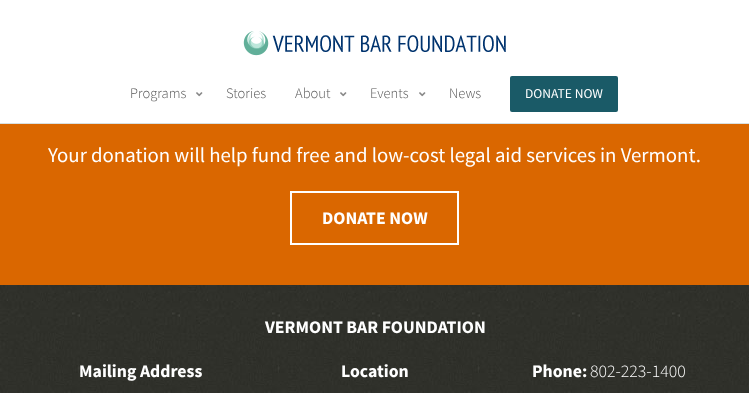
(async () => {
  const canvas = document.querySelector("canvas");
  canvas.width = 749;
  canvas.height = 393;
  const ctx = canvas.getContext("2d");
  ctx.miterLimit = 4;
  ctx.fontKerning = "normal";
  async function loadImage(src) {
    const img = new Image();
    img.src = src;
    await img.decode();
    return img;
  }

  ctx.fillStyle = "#ffffff";
  ctx.fillRect(0, 0, 749, 393);
  ctx.fillStyle = "#d8e0e1";
  ctx.fillRect(0, 123, 749, 1);
  ctx.drawImage(await loadImage("img/1.png"), 243, 31, 263, 25);
  ctx.drawImage(await loadImage("img/2.png"), 196, 92, 7, 5);
  ctx.drawImage(await loadImage("img/2.png"), 340, 92, 7, 5);
  ctx.drawImage(await loadImage("img/2.png"), 419, 92, 7, 5);
  ctx.fillStyle = "#1a5a67";
  ctx.beginPath();
  ctx.roundRect(510, 76, 108, 36, 2);
  ctx.fill();
  ctx.fillStyle = "#da6700";
  ctx.fillRect(0, 124, 749, 161);
  ctx.strokeStyle = "#ffffff";
  ctx.lineWidth = 2;
  ctx.strokeRect(291, 192, 167, 52);
  ctx.drawImage(await loadImage("img/3.png"), 0, 285, 749, 108);
  ctx.font = "300 14.5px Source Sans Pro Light";
  ctx.fillStyle = "#555555";
  for (const [text, x, y] of [
    ["Programs", 130, 98],
    ["Stories", 226, 98],
    ["About", 295, 98],
    ["Events", 370, 98],
    ["News", 449, 98],
  ]) {
    ctx.fillText(text, x, y);
  }
  ctx.font = "13.5px Source Sans Pro";
  ctx.fillStyle = "#ffffff";
  ctx.fillText("DONATE NOW", 525, 98);
  ctx.font = "20.8px Source Sans Pro";
  ctx.fillText("Your donation will help fund free and low-cost legal aid services in Vermont.", 48, 162);
  ctx.font = "bold 17.75px Source Sans Pro";
  for (const [text, x, y] of [
    ["DONATE NOW", 322, 224],
    ["VERMONT BAR FOUNDATION", 265, 333],
    ["Mailing Address", 79, 377],
    ["Location", 341, 377],
    ["Phone:", 532, 377],
  ]) {
    ctx.fillText(text, x, y);
  }
  ctx.font = "300 17.75px Source Sans Pro Light";
  ctx.fillText("802-223-1400", 590, 377);
})();
